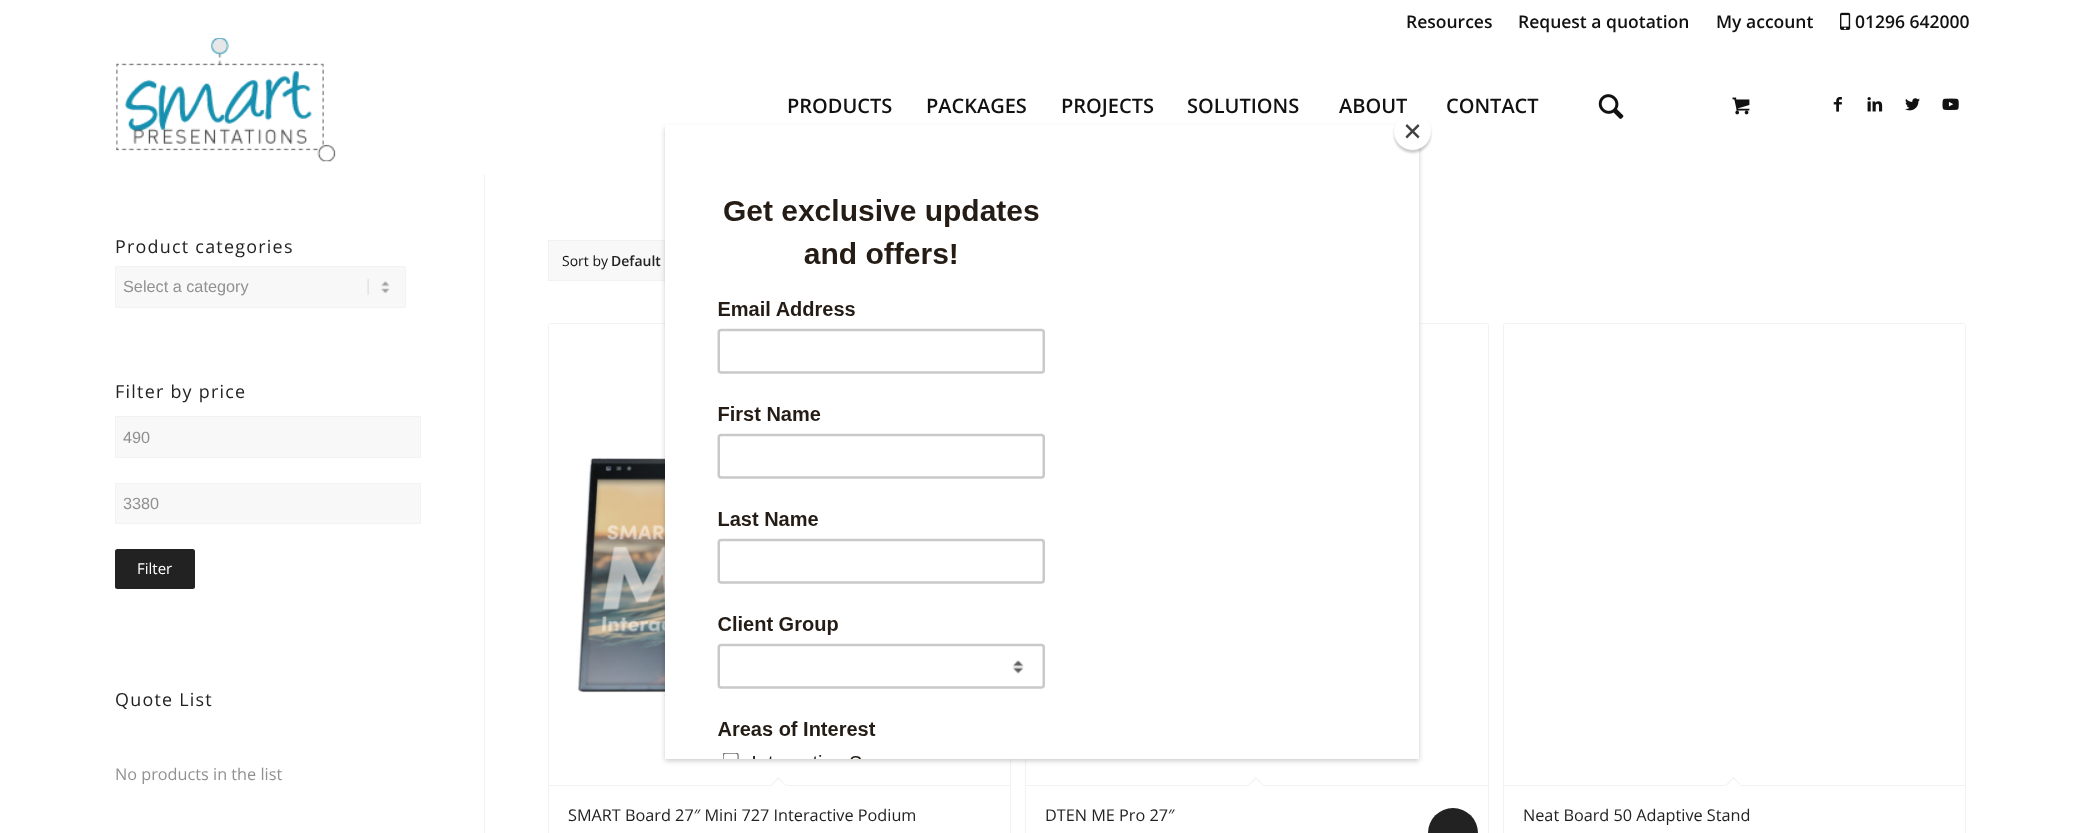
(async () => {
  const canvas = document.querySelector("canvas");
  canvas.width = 2083;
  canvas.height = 833;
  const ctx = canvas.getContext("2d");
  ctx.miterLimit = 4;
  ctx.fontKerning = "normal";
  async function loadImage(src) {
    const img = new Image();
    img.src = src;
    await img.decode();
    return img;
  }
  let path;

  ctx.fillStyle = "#ffffff";
  ctx.fillRect(0, 0, 2083, 833);
  ctx.drawImage(await loadImage("img/1.png"), 1840, 12, 11, 18);
  ctx.drawImage(await loadImage("img/2.png"), 116, 38, 220, 124);
  ctx.drawImage(await loadImage("img/3.png"), 1598, 94, 26, 25);
  ctx.drawImage(await loadImage("img/4.png"), 1732, 97, 18, 18);
  ctx.drawImage(await loadImage("img/5.png"), 1833, 97, 9, 15);
  ctx.drawImage(await loadImage("img/6.png"), 1867, 97, 16, 15);
  ctx.drawImage(await loadImage("img/7.png"), 1905, 98, 15, 13);
  ctx.drawImage(await loadImage("img/8.png"), 1942, 98, 17, 12);
  ctx.fillStyle = "#f8f8f8";
  ctx.beginPath();
  ctx.roundRect(115, 266, 291, 42, 2.5);
  ctx.fill();
  ctx.drawImage(await loadImage("img/9.png"), 367, 279, 23, 16);
  ctx.beginPath();
  ctx.roundRect(115.5, 266.5, 290, 41, 2);
  ctx.strokeStyle = "#f2f2f2";
  ctx.stroke();
  ctx.beginPath();
  ctx.rect(115.5, 416.5, 305, 41);
  ctx.fill();
  ctx.stroke();
  ctx.beginPath();
  ctx.rect(115.5, 483.5, 305, 40);
  ctx.fill();
  ctx.stroke();
  ctx.fillStyle = "#222222";
  ctx.beginPath();
  ctx.roundRect(115, 549, 80, 40, 2.5);
  ctx.fill();
  ctx.fillStyle = "#f2f2f2";
  ctx.fillRect(484, 174, 1, 659);
  ctx.fillStyle = "#f8f8f8";
  ctx.fillRect(549, 241, 116, 39);
  ctx.strokeRect(548.5, 240.5, 162, 40);
  ctx.beginPath();
  ctx.roundRect(548.5, 323.5, 462, 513, 2);
  ctx.stroke();
  ctx.drawImage(await loadImage("img/10.png"), 549, 324, 116, 369);
  ctx.fillStyle = "#f2f2f2";
  ctx.fillRect(549, 785, 461, 1);
  ctx.fillStyle = "#ffffff";
  path = new Path2D("M778.5 777L787 786L778.5 794.5L769.5 786Z");
  ctx.fill(path);
  ctx.fillStyle = "#f2f2f2";
  path = new Path2D("M778.5 777L787 786L786.5 786.5L777.5 778Z");
  ctx.fill(path);
  path = new Path2D("M778.5 777L779.5 778L770.5 786.5L769.5 786Z");
  ctx.fill(path);
  ctx.beginPath();
  ctx.roundRect(1025.5, 323.5, 463, 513, 2);
  ctx.stroke();
  ctx.fillRect(1026, 785, 462, 1);
  ctx.fillStyle = "#ffffff";
  path = new Path2D("M1256 777L1264.5 786L1256 794.5L1247 786Z");
  ctx.fill(path);
  ctx.fillStyle = "#f2f2f2";
  path = new Path2D("M1256 777L1264.5 786L1264 786.5L1255 778Z");
  ctx.fill(path);
  path = new Path2D("M1256 777L1257 778L1248 786.5L1247 786Z");
  ctx.fill(path);
  ctx.fillStyle = "#222222";
  ctx.beginPath();
  ctx.arc(1453, 833, 25, 0, Math.PI * 2);
  ctx.fill();
  ctx.beginPath();
  ctx.roundRect(1503.5, 323.5, 462, 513, 2);
  ctx.stroke();
  ctx.fillStyle = "#f2f2f2";
  ctx.fillRect(1504, 785, 461, 1);
  ctx.fillStyle = "#ffffff";
  path = new Path2D("M1733.5 777L1742 786L1733.5 794.5L1724.5 786Z");
  ctx.fill(path);
  ctx.fillStyle = "#f2f2f2";
  path = new Path2D("M1733.5 777L1742 786L1741.5 786.5L1732.5 778Z");
  ctx.fill(path);
  path = new Path2D("M1733.5 777L1734 778L1725.5 786.5L1724.5 786Z");
  ctx.fill(path);
  ctx.save();
  path = new Path2D("M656 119H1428V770H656ZM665 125H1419V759H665Z");
  ctx.clip(path, "evenodd");
  ctx.fillStyle = "rgba(0, 0, 0, 0.2)";
  ctx.filter = "blur(2.5px)";
  ctx.beginPath();
  ctx.rect(665, 128, 754, 633);
  ctx.fill();
  ctx.filter = "none";
  ctx.restore();
  ctx.drawImage(await loadImage("img/11.png"), 665, 128, 754, 631);
  ctx.fillStyle = "rgba(0, 0, 0, 0.2)";
  ctx.filter = "blur(1px)";
  ctx.beginPath();
  ctx.roundRect(1394, 115, 37, 38, 18.5);
  ctx.fill();
  ctx.filter = "none";
  ctx.font = "600 17.5px Open Sans";
  ctx.fillStyle = "#111111";
  for (const [text, x, y] of [
    ["Resources", 1406, 28],
    ["Request a quotation", 1518, 28],
    ["My account", 1716, 28],
    ["01296 642000", 1855, 28],
  ]) {
    ctx.fillText(text, x, y);
  }
  ctx.font = "600 20px Open Sans";
  for (const [text, x, y] of [
    ["PRODUCTS", 787, 113],
    ["PACKAGES", 926, 113],
    ["PROJECTS", 1061, 113],
    ["SOLUTIONS", 1187, 113],
    ["ABOUT", 1339, 113],
    ["CONTACT", 1446, 113],
  ]) {
    ctx.fillText(text, x, y);
  }
  ctx.letterSpacing = "1.25px";
  ctx.font = "17.9px Open Sans";
  ctx.fillStyle = "#222222";
  ctx.fillText("Product categories", 115, 253);
  ctx.letterSpacing = "0px";
  ctx.font = "16.25px Liberation Sans";
  ctx.fillStyle = "#919191";
  ctx.fillText("Select a category", 123, 292);
  ctx.letterSpacing = "1.25px";
  ctx.font = "17.9px Open Sans";
  ctx.fillStyle = "#222222";
  ctx.fillText("Filter by price", 115, 398);
  ctx.letterSpacing = "0px";
  ctx.font = "16.25px Liberation Sans";
  ctx.fillStyle = "#919191";
  ctx.fillText("490", 123, 443);
  ctx.fillText("3380", 123, 509);
  ctx.font = "15px Open Sans";
  ctx.fillStyle = "#ffffff";
  ctx.fillText("Filter", 137, 574);
  ctx.letterSpacing = "1.25px";
  ctx.font = "17.9px Open Sans";
  ctx.fillStyle = "#222222";
  ctx.fillText("Quote List", 115, 706);
  ctx.letterSpacing = "0px";
  ctx.font = "16.25px Open Sans";
  ctx.fillStyle = "#919191";
  ctx.fillText("No products in the list", 115, 780);
  ctx.font = "14px Open Sans";
  ctx.fillStyle = "#111111";
  ctx.fillText("Sort by", 562, 266);
  ctx.font = "600 14px Open Sans";
  ctx.fillStyle = "#222222";
  ctx.fillText("Default", 611, 266);
  ctx.font = "16.25px Open Sans";
  for (const [text, x, y] of [
    ["SMART Board 27″ Mini 727 Interactive Podium", 568, 821],
    ["DTEN ME Pro 27″", 1045, 821],
    ["Neat Board 50 Adaptive Stand", 1523, 821],
  ]) {
    ctx.fillText(text, x, y);
  }
  ctx.fillStyle = "#ffffff";
  ctx.beginPath();
  ctx.arc(1412.5, 131.5, 18.5, 0, Math.PI * 2);
  ctx.fill();
  ctx.fillStyle = "#414141";
  path = new Path2D("M1418 124L1419.5 126L1407 138.5L1405.5 136.5Z");
  ctx.fill(path);
  path = new Path2D("M1405.5 126L1407 124L1419.5 136.5L1418 138.5Z");
  ctx.fill(path);
})();
